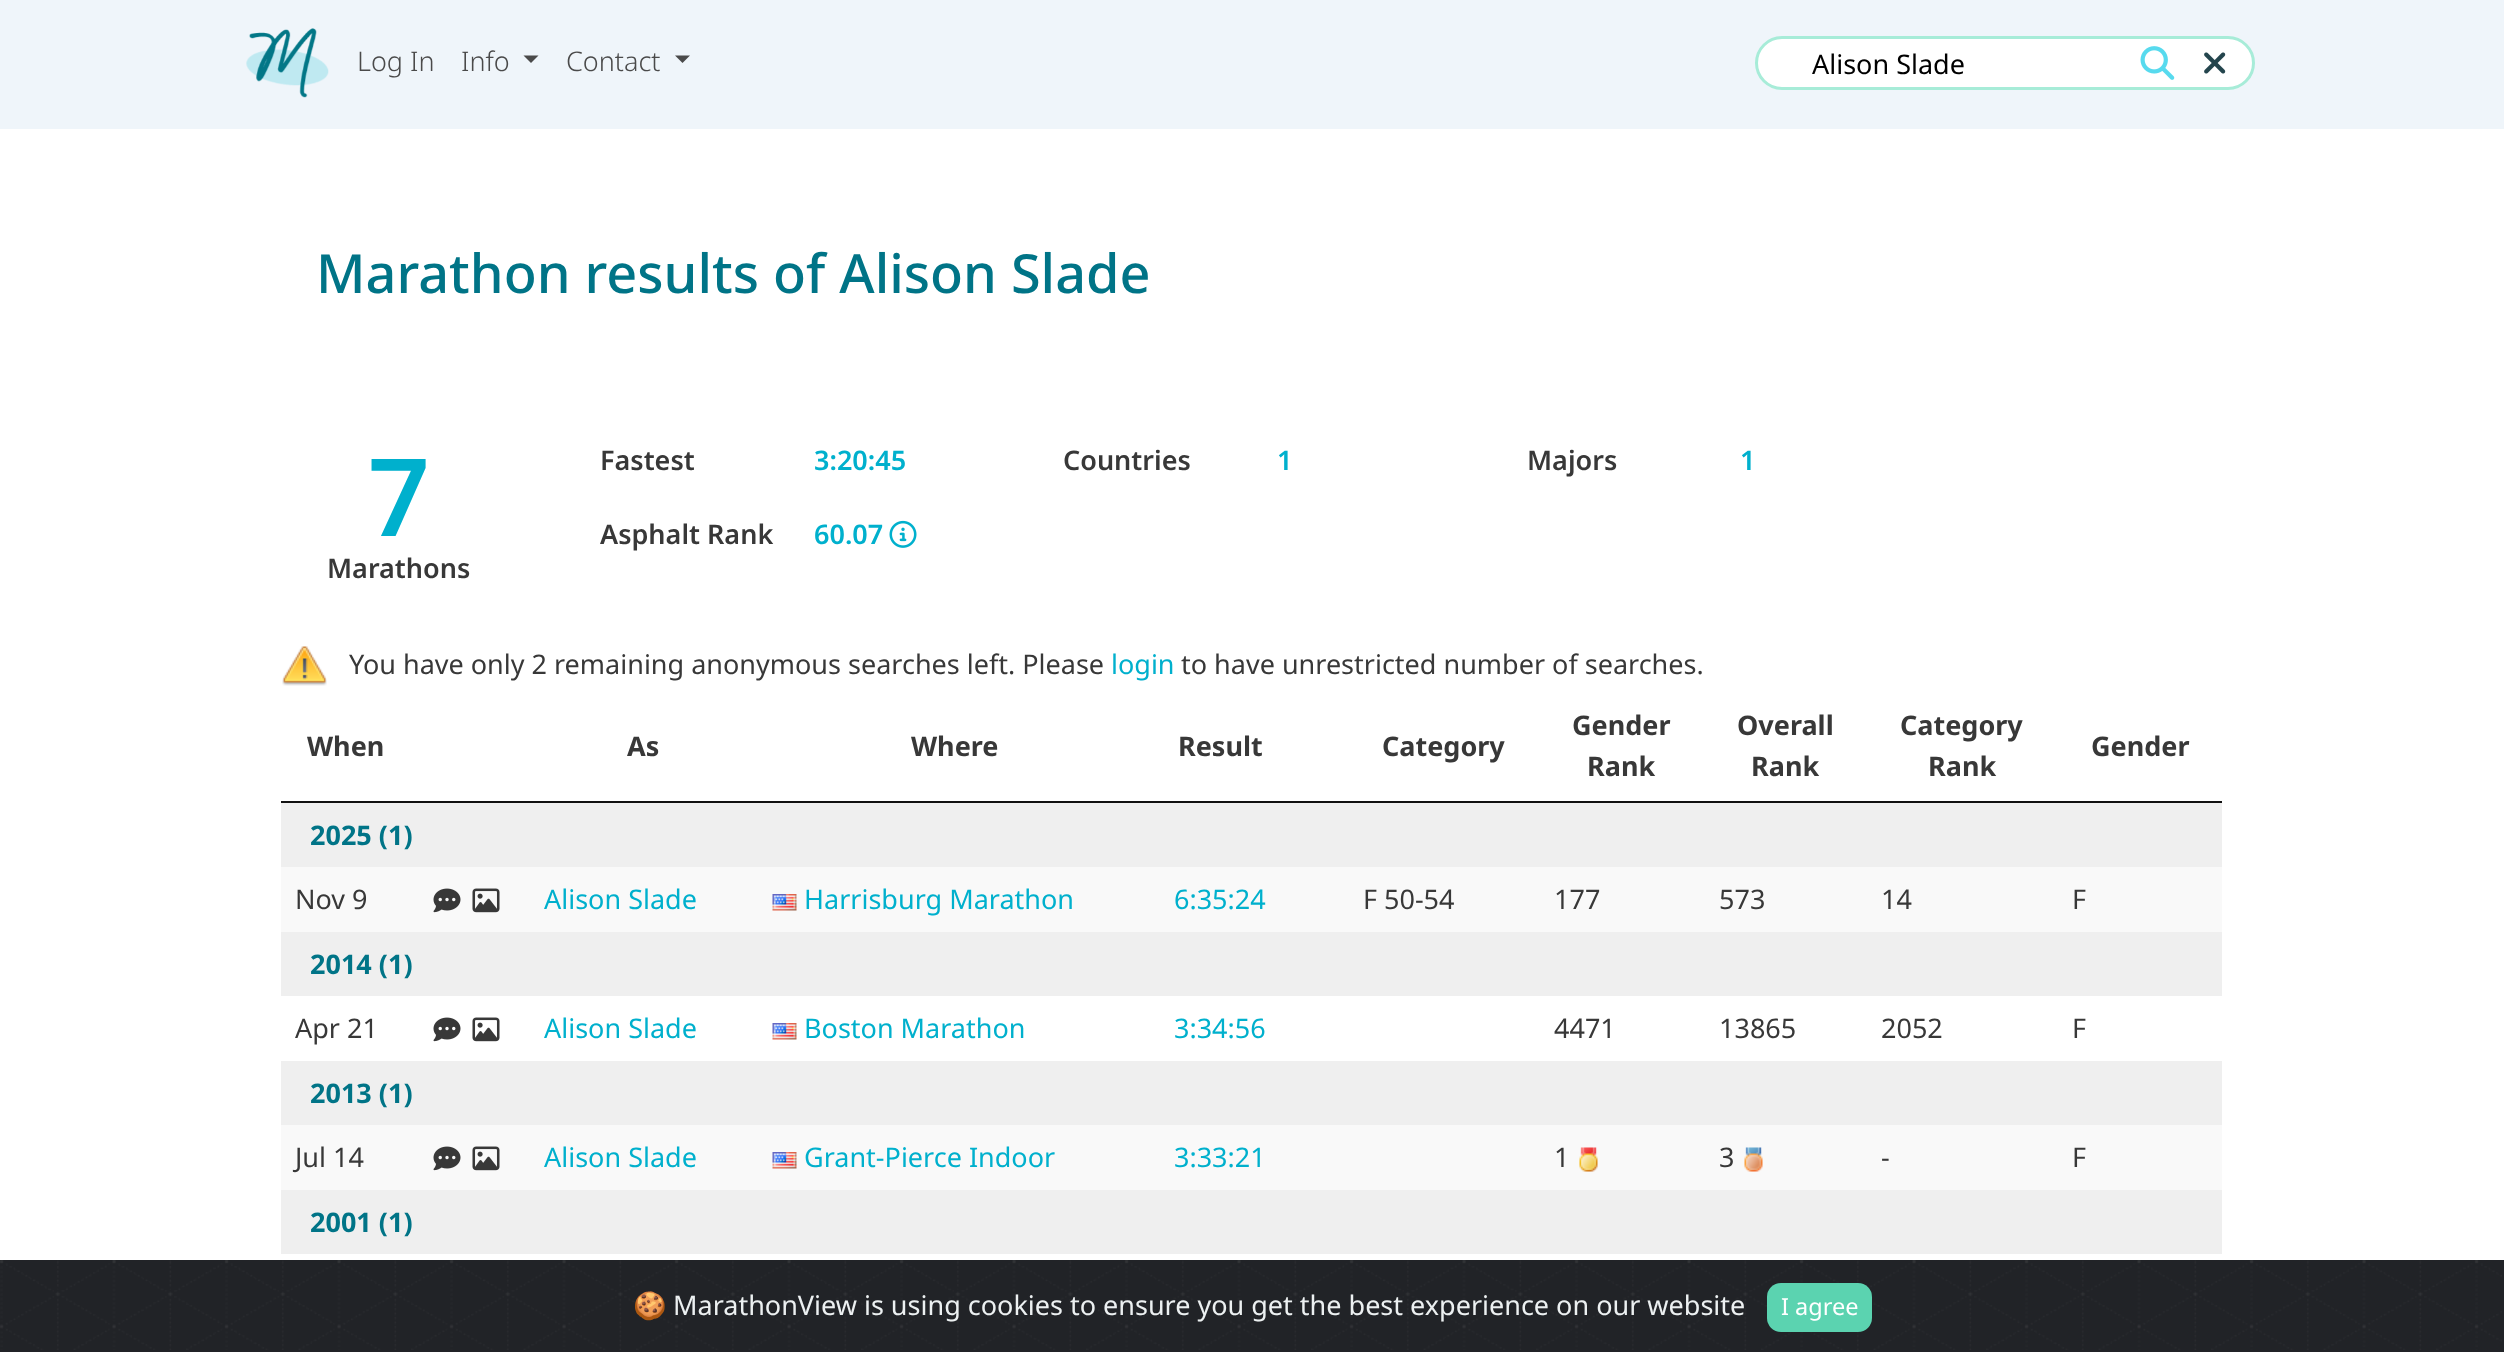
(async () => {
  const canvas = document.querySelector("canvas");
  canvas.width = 2504;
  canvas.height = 1352;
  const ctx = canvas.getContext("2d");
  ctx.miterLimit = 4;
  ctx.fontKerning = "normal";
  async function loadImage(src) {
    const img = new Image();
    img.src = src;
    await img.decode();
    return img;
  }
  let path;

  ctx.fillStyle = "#ffffff";
  ctx.fillRect(0, 0, 2504, 1352);
  ctx.fillStyle = "#eff5fa";
  ctx.fillRect(0, 0, 2504, 129);
  ctx.drawImage(await loadImage("img/1.png"), 246, 28, 83, 70);
  ctx.fillStyle = "#4a4a4a";
  path = new Path2D("M523.5 55.5H538.5L531 63Z");
  ctx.fill(path);
  path = new Path2D("M675 55.5H690L682.5 63Z");
  ctx.fill(path);
  ctx.fillStyle = "#ffffff";
  ctx.beginPath();
  ctx.roundRect(1756.5, 37.5, 497, 51, 25.5);
  ctx.fill();
  ctx.strokeStyle = "#a7ecd8";
  ctx.lineWidth = 3;
  ctx.stroke();
  ctx.drawImage(await loadImage("img/2.png"), 2140, 46, 35, 34);
  ctx.drawImage(await loadImage("img/3.png"), 2204, 52, 22, 22);
  ctx.drawImage(await loadImage("img/4.png"), 889, 520, 28, 28);
  ctx.drawImage(await loadImage("img/5.png"), 282, 646, 45, 40);
  for (const [x, y, w, h, color] of [
    [281, 801, 1941, 2, "#111111"],
    [281, 803, 1941, 64, "#efefef"],
    [281, 867, 1941, 65, "#f9f9f9"],
  ]) {
    ctx.fillStyle = color;
    ctx.fillRect(x, y, w, h);
  }
  ctx.drawImage(await loadImage("img/6.png"), 433, 888, 28, 25);
  ctx.drawImage(await loadImage("img/7.png"), 472, 888, 28, 25);
  ctx.drawImage(await loadImage("img/8.png"), 772, 894, 25, 17);
  ctx.fillStyle = "#efefef";
  ctx.fillRect(281, 932, 1941, 64);
  ctx.drawImage(await loadImage("img/9.png"), 433, 1017, 28, 25);
  ctx.drawImage(await loadImage("img/10.png"), 472, 1017, 28, 25);
  ctx.drawImage(await loadImage("img/11.png"), 772, 1023, 25, 17);
  ctx.fillRect(281, 1061, 1941, 64);
  ctx.fillStyle = "#f9f9f9";
  ctx.fillRect(281, 1125, 1941, 65);
  ctx.drawImage(await loadImage("img/6.png"), 433, 1146, 28, 25);
  ctx.drawImage(await loadImage("img/7.png"), 472, 1146, 28, 25);
  ctx.drawImage(await loadImage("img/8.png"), 772, 1152, 25, 17);
  ctx.drawImage(await loadImage("img/12.png"), 1579, 1147, 19, 25);
  ctx.drawImage(await loadImage("img/13.png"), 1744, 1147, 19, 25);
  ctx.fillStyle = "#efefef";
  ctx.fillRect(281, 1190, 1941, 64);
  ctx.fillStyle = "#212327";
  ctx.fillRect(0, 1260, 2504, 92);
  ctx.drawImage(await loadImage("img/14.png"), 0, 1260, 2502, 90);
  ctx.fillStyle = "#5bd3b0";
  ctx.beginPath();
  ctx.roundRect(1767, 1283, 105, 49, 14);
  ctx.fill();
  ctx.font = "300 27px Noto Sans";
  ctx.fillStyle = "#4a4a4a";
  for (const [text, x, y] of [
    ["Log In", 357, 71],
    ["Info", 461, 71],
    ["Contact", 566, 71],
  ]) {
    ctx.fillText(text, x, y);
  }
  ctx.font = "27px Noto Sans";
  ctx.fillStyle = "#000000";
  ctx.fillText("Alison Slade", 1812, 74);
  ctx.font = "500 54px Noto Sans";
  ctx.fillStyle = "#007487";
  ctx.fillText("Marathon results of Alison Slade", 316, 293);
  ctx.font = "600 108px Noto Sans";
  ctx.fillStyle = "#00b0cd";
  ctx.fillText("7", 368, 536);
  ctx.font = "600 27px Noto Sans";
  ctx.fillStyle = "#383838";
  ctx.fillText("Marathons", 327, 578);
  ctx.fillText("Fastest", 600, 470);
  ctx.fillStyle = "#00b0cd";
  ctx.fillText("3:20:45", 814, 470);
  ctx.fillStyle = "#383838";
  ctx.fillText("Countries", 1063, 470);
  ctx.fillStyle = "#00b0cd";
  ctx.fillText("1", 1277, 470);
  ctx.fillStyle = "#383838";
  ctx.fillText("Majors", 1527, 470);
  ctx.fillStyle = "#00b0cd";
  ctx.fillText("1", 1740, 470);
  ctx.fillStyle = "#383838";
  ctx.fillText("Asphalt Rank", 600, 544);
  ctx.fillStyle = "#00b0cd";
  ctx.fillText("60.07", 814, 544);
  ctx.font = "27px Noto Sans";
  ctx.fillStyle = "#383838";
  ctx.fillText("You have only 2 remaining anonymous searches left. Please", 349, 674);
  ctx.fillStyle = "#00b0cd";
  ctx.fillText("login", 1111, 674);
  ctx.fillStyle = "#383838";
  ctx.fillText("to have unrestricted number of searches.", 1181, 674);
  ctx.font = "bold 27px Noto Sans";
  for (const [text, x, y] of [
    ["When", 307, 756],
    ["As", 627, 756],
    ["Where", 911, 756],
    ["Result", 1178, 756],
    ["Category", 1382, 756],
    ["Gender", 1572, 735],
    ["Rank", 1587, 776],
    ["Overall", 1737, 735],
    ["Rank", 1751, 776],
    ["Category", 1900, 735],
    ["Rank", 1928, 776],
    ["Gender", 2091, 756],
  ]) {
    ctx.fillText(text, x, y);
  }
  ctx.fillStyle = "#007487";
  ctx.fillText("2025 (1)", 310, 845);
  ctx.font = "27px Noto Sans";
  ctx.fillStyle = "#383838";
  ctx.fillText("Nov 9", 295, 909);
  ctx.fillStyle = "#00b0cd";
  for (const [text, x, y] of [
    ["Alison Slade", 544, 909],
    ["Harrisburg Marathon", 804, 909],
    ["6:35:24", 1174, 909],
  ]) {
    ctx.fillText(text, x, y);
  }
  ctx.fillStyle = "#383838";
  for (const [text, x, y] of [
    ["F 50-54", 1363, 909],
    ["177", 1554, 909],
    ["573", 1719, 909],
    ["14", 1881, 909],
    ["F", 2072, 909],
  ]) {
    ctx.fillText(text, x, y);
  }
  ctx.font = "bold 27px Noto Sans";
  ctx.fillStyle = "#007487";
  ctx.fillText("2014 (1)", 310, 974);
  ctx.font = "27px Noto Sans";
  ctx.fillStyle = "#383838";
  ctx.fillText("Apr 21", 295, 1038);
  ctx.fillStyle = "#00b0cd";
  for (const [text, x, y] of [
    ["Alison Slade", 544, 1038],
    ["Boston Marathon", 804, 1038],
    ["3:34:56", 1174, 1038],
  ]) {
    ctx.fillText(text, x, y);
  }
  ctx.fillStyle = "#383838";
  for (const [text, x, y] of [
    ["4471", 1554, 1038],
    ["13865", 1719, 1038],
    ["2052", 1881, 1038],
    ["F", 2072, 1038],
  ]) {
    ctx.fillText(text, x, y);
  }
  ctx.font = "bold 27px Noto Sans";
  ctx.fillStyle = "#007487";
  ctx.fillText("2013 (1)", 310, 1103);
  ctx.font = "27px Noto Sans";
  ctx.fillStyle = "#383838";
  ctx.fillText("Jul 14", 295, 1167);
  ctx.fillStyle = "#00b0cd";
  for (const [text, x, y] of [
    ["Alison Slade", 544, 1167],
    ["Grant-Pierce Indoor", 804, 1167],
    ["3:33:21", 1174, 1167],
  ]) {
    ctx.fillText(text, x, y);
  }
  ctx.fillStyle = "#383838";
  for (const [text, x, y] of [
    ["1", 1554, 1167],
    ["3", 1719, 1167],
    ["-", 1881, 1167],
    ["F", 2072, 1167],
  ]) {
    ctx.fillText(text, x, y);
  }
  ctx.font = "bold 27px Noto Sans";
  ctx.fillStyle = "#007487";
  ctx.fillText("2001 (1)", 310, 1232);
  ctx.font = "27px Noto Color Emoji";
  ctx.fillStyle = "#ecf0f1";
  ctx.fillText("🍪", 633, 1315);
  ctx.font = "27px Noto Sans";
  ctx.fillText("MarathonView is using cookies to ensure you get the best experience on our website", 673, 1315);
  ctx.font = "23.5px Noto Sans";
  ctx.fillStyle = "#ffffff";
  ctx.fillText("I agree", 1781, 1315);
})();
